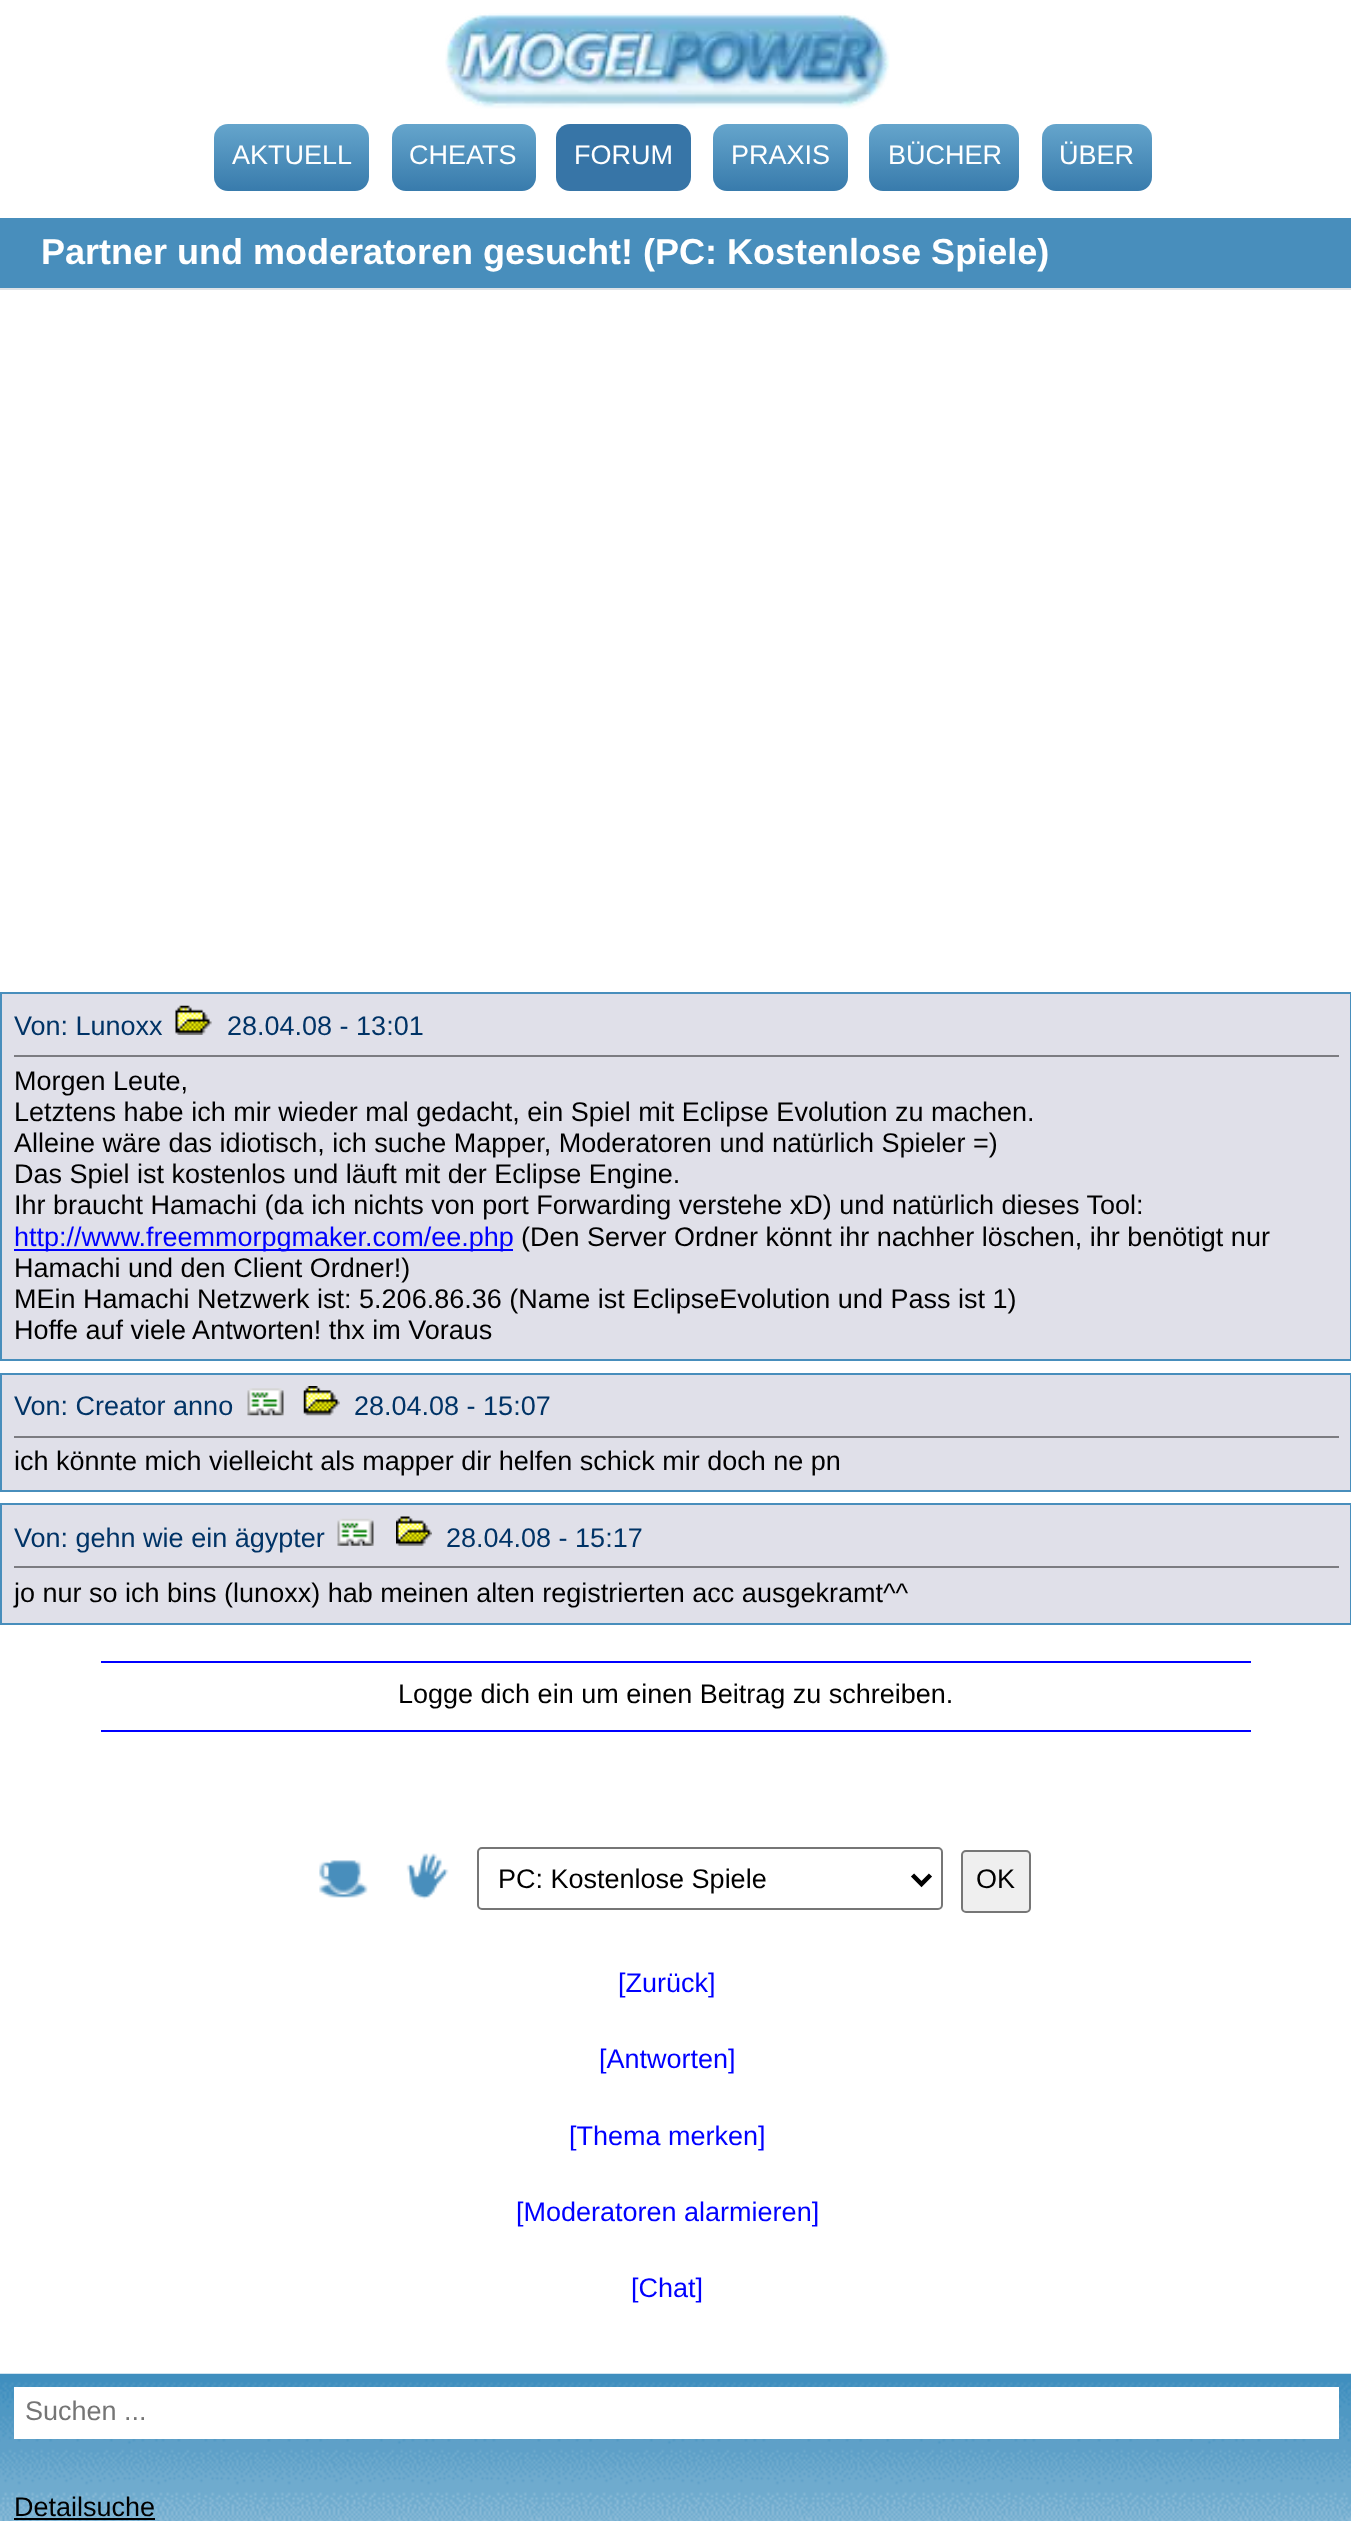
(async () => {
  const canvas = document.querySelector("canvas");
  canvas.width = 1351;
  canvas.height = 2521;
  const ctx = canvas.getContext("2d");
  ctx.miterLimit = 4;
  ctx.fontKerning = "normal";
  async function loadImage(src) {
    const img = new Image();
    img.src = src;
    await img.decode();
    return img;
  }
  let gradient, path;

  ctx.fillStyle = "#ffffff";
  ctx.fillRect(0, 0, 1351, 2521);
  ctx.fillStyle = "#dee2e6";
  ctx.fillRect(0, 288, 1351, 2);
  ctx.drawImage(await loadImage("img/1.png"), 445, 13, 445, 96);
  gradient = ctx.createLinearGradient(291, 191, 291, 124);
  gradient.addColorStop(0, "#387bac");
  gradient.addColorStop(1, "#65a5cc");
  ctx.fillStyle = gradient;
  ctx.beginPath();
  ctx.roundRect(214, 124, 155, 67, 14);
  ctx.fill();
  gradient = ctx.createLinearGradient(464, 191, 464, 124);
  gradient.addColorStop(0, "#387bac");
  gradient.addColorStop(1, "#65a5cc");
  ctx.fillStyle = gradient;
  ctx.beginPath();
  ctx.roundRect(392, 124, 144, 67, 14);
  ctx.fill();
  ctx.fillStyle = "#3775a7";
  ctx.beginPath();
  ctx.roundRect(556, 124, 135, 67, 14);
  ctx.fill();
  gradient = ctx.createLinearGradient(781, 191, 781, 124);
  gradient.addColorStop(0, "#387bac");
  gradient.addColorStop(1, "#65a5cc");
  ctx.fillStyle = gradient;
  ctx.beginPath();
  ctx.roundRect(713, 124, 135, 67, 14);
  ctx.fill();
  gradient = ctx.createLinearGradient(944, 191, 944, 124);
  gradient.addColorStop(0, "#387bac");
  gradient.addColorStop(1, "#65a5cc");
  ctx.fillStyle = gradient;
  ctx.beginPath();
  ctx.roundRect(869, 124, 150, 67, 14);
  ctx.fill();
  gradient = ctx.createLinearGradient(1097, 191, 1097, 124);
  gradient.addColorStop(0, "#387bac");
  gradient.addColorStop(1, "#65a5cc");
  ctx.fillStyle = gradient;
  ctx.beginPath();
  ctx.roundRect(1042, 124, 110, 67, 14);
  ctx.fill();
  ctx.fillStyle = "#488ebc";
  ctx.fillRect(0, 218, 1351, 70);
  ctx.fillStyle = "#e0e0e9";
  ctx.beginPath();
  ctx.rect(1, 993, 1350, 367);
  ctx.fill();
  ctx.strokeStyle = "#488ebc";
  ctx.lineWidth = 2;
  ctx.stroke();
  ctx.fillStyle = "#7c7c81";
  ctx.fillRect(14, 1055, 1325, 2);
  ctx.drawImage(await loadImage("img/2.png"), 175, 1005, 37, 30);
  ctx.fillStyle = "#0000ff";
  ctx.fillRect(14, 1249, 499, 2);
  ctx.fillStyle = "#e0e0e9";
  ctx.beginPath();
  ctx.rect(1, 1374, 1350, 117);
  ctx.fill();
  ctx.stroke();
  ctx.fillStyle = "#7c7c81";
  ctx.fillRect(14, 1436, 1325, 2);
  ctx.drawImage(await loadImage("img/3.png"), 247, 1388, 37, 28);
  ctx.drawImage(await loadImage("img/4.png"), 303, 1386, 37, 30);
  ctx.fillStyle = "#e0e0e9";
  ctx.beginPath();
  ctx.rect(1, 1504, 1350, 120);
  ctx.fill();
  ctx.stroke();
  ctx.fillStyle = "#7c7c81";
  ctx.fillRect(14, 1566, 1325, 2);
  ctx.drawImage(await loadImage("img/5.png"), 337, 1518, 37, 28);
  ctx.drawImage(await loadImage("img/6.png"), 396, 1516, 36, 30);
  ctx.fillStyle = "#0000ff";
  ctx.fillRect(101, 1661, 1150, 2);
  ctx.fillRect(101, 1730, 1150, 2);
  ctx.drawImage(await loadImage("img/7.png"), 319, 1860, 49, 38);
  ctx.drawImage(await loadImage("img/8.png"), 406, 1853, 43, 47);
  ctx.beginPath();
  ctx.roundRect(478, 1848, 464, 61, 4);
  ctx.strokeStyle = "#767676";
  ctx.stroke();
  path = new Path2D("M912.5 1875L921.5 1884L930.5 1875");
  ctx.strokeStyle = "#000000";
  ctx.lineWidth = 4.5;
  ctx.stroke(path);
  ctx.fillStyle = "#efefef";
  ctx.beginPath();
  ctx.roundRect(962, 1851, 68, 61, 4);
  ctx.fill();
  ctx.strokeStyle = "#767676";
  ctx.lineWidth = 2;
  ctx.stroke();
  ctx.drawImage(await loadImage("img/9.png"), 0, 2373, 1351, 148);
  ctx.fillStyle = "#ffffff";
  ctx.fillRect(14, 2387, 1325, 52);
  ctx.fillStyle = "#000000";
  ctx.fillRect(14, 2518, 141, 2);
  ctx.font = "27px Liberation Sans";
  ctx.fillStyle = "#ffffff";
  for (const [text, x, y] of [
    ["AKTUELL", 232, 164],
    ["CHEATS", 409, 164],
    ["FORUM", 574, 164],
    ["PRAXIS", 731, 164],
    ["BÜCHER", 888, 164],
    ["ÜBER", 1059, 164],
  ]) {
    ctx.fillText(text, x, y);
  }
  ctx.font = "bold 36px Liberation Sans";
  ctx.fillText("Partner und moderatoren gesucht! (PC: Kostenlose Spiele)", 41, 264);
  ctx.font = "27px Liberation Sans";
  ctx.fillStyle = "#003366";
  ctx.fillText("Von: Lunoxx", 14, 1035);
  ctx.fillText("28.04.08 - 13:01", 227, 1035);
  ctx.fillStyle = "#000000";
  for (const [text, x, y] of [
    ["Morgen Leute,", 14, 1090],
    ["Letztens habe ich mir wieder mal gedacht, ein Spiel mit Eclipse Evolution zu machen.", 14, 1121],
    ["Alleine wäre das idiotisch, ich suche Mapper, Moderatoren und natürlich Spieler =)", 14, 1152],
    ["Das Spiel ist kostenlos und läuft mit der Eclipse Engine.", 14, 1183],
    ["Ihr braucht Hamachi (da ich nichts von port Forwarding verstehe xD) und natürlich dieses Tool:", 14, 1214],
  ]) {
    ctx.fillText(text, x, y);
  }
  ctx.fillStyle = "#0000ff";
  ctx.fillText("http://www.freemmorpgmaker.com/ee.php", 14, 1246);
  ctx.fillStyle = "#000000";
  for (const [text, x, y] of [
    ["(Den Server Ordner könnt ihr nachher löschen, ihr benötigt nur", 521, 1246],
    ["Hamachi und den Client Ordner!)", 14, 1277],
    ["MEin Hamachi Netzwerk ist: 5.206.86.36 (Name ist EclipseEvolution und Pass ist 1)", 14, 1308],
    ["Hoffe auf viele Antworten! thx im Voraus", 14, 1339],
  ]) {
    ctx.fillText(text, x, y);
  }
  ctx.fillStyle = "#003366";
  ctx.fillText("Von: Creator anno", 14, 1415);
  ctx.fillText("28.04.08 - 15:07", 354, 1415);
  ctx.fillStyle = "#000000";
  ctx.fillText("ich könnte mich vielleicht als mapper dir helfen schick mir doch ne pn", 14, 1470);
  ctx.fillStyle = "#003366";
  ctx.fillText("Von: gehn wie ein ägypter", 14, 1547);
  ctx.fillText("28.04.08 - 15:17", 446, 1547);
  ctx.fillStyle = "#000000";
  for (const [text, x, y] of [
    ["jo nur so ich bins (lunoxx) hab meinen alten registrierten acc ausgekramt^^", 14, 1602],
    ["Logge dich ein um einen Beitrag zu schreiben.", 398, 1703],
    ["PC: Kostenlose Spiele", 498, 1888],
    ["OK", 976, 1888],
  ]) {
    ctx.fillText(text, x, y);
  }
  ctx.fillStyle = "#0000ff";
  for (const [text, x, y] of [
    ["[Zurück]", 618, 1992],
    ["[Antworten]", 599, 2068],
    ["[Thema merken]", 569, 2145],
    ["[Moderatoren alarmieren]", 516, 2221],
    ["[Chat]", 631, 2297],
  ]) {
    ctx.fillText(text, x, y);
  }
  ctx.fillStyle = "#757575";
  ctx.fillText("Suchen ...", 25, 2420);
  ctx.fillStyle = "#000000";
  ctx.fillText("Detailsuche", 14, 2516);
})();
